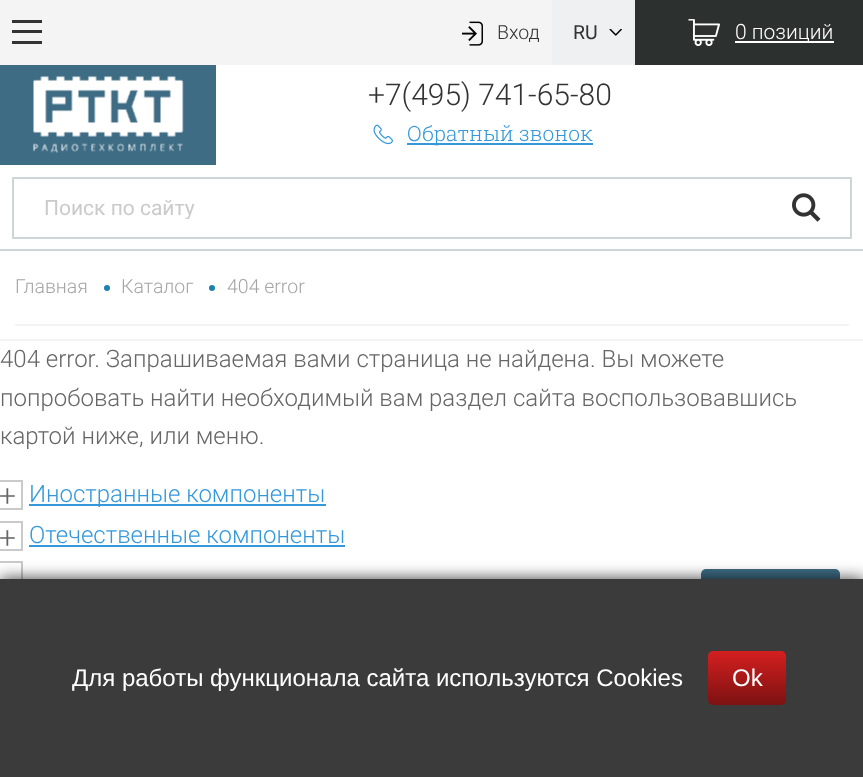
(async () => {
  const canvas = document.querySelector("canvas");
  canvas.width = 863;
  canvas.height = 777;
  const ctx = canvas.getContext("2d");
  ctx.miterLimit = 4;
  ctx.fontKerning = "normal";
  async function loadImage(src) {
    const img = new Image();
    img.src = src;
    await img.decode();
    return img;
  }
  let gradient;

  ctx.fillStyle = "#ffffff";
  ctx.fillRect(0, 0, 863, 777);
  for (const [x, y, w, h, color] of [
    [0, 0, 552, 65, "#f4f4f4"],
    [12, 41, 30, 3, "#333333"],
    [12, 30, 30, 3, "#333333"],
    [12, 20, 30, 3, "#333333"],
  ]) {
    ctx.fillStyle = color;
    ctx.fillRect(x, y, w, h);
  }
  ctx.drawImage(await loadImage("img/1.png"), 462, 21, 21, 25);
  ctx.fillStyle = "#eff0f1";
  ctx.fillRect(552, 0, 83, 65);
  ctx.drawImage(await loadImage("img/2.png"), 609, 29, 13, 7);
  ctx.fillStyle = "#2c302f";
  ctx.fillRect(635, 0, 228, 65);
  ctx.drawImage(await loadImage("img/3.png"), 688, 19, 32, 27);
  for (const [x, y, w, h, color] of [
    [735, 41, 99, 2, "#ffffff"],
    [0, 249, 863, 2, "#cfd6d9"],
    [0, 65, 216, 100, "#3e6c84"],
  ]) {
    ctx.fillStyle = color;
    ctx.fillRect(x, y, w, h);
  }
  ctx.drawImage(await loadImage("img/4.png"), 33, 76, 151, 77);
  ctx.drawImage(await loadImage("img/5.png"), 373, 124, 20, 21);
  ctx.fillStyle = "#3498db";
  ctx.fillRect(407, 143, 186, 2);
  ctx.strokeStyle = "#cfd6d9";
  ctx.lineWidth = 2;
  ctx.strokeRect(13, 178, 838, 60);
  ctx.drawImage(await loadImage("img/6.png"), 792, 193, 29, 29);
  ctx.fillStyle = "#f1f3f4";
  ctx.fillRect(0, 339, 863, 2);
  ctx.fillRect(15, 324, 834, 2);
  ctx.fillStyle = "#1e80b4";
  ctx.beginPath();
  ctx.arc(107, 288, 3, 0, Math.PI * 2);
  ctx.fill();
  ctx.beginPath();
  ctx.arc(212, 288, 3, 0, Math.PI * 2);
  ctx.fill();
  ctx.strokeStyle = "#cacaca";
  ctx.strokeRect(-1, 481, 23, 28);
  ctx.fillStyle = "#3498db";
  ctx.fillRect(29, 504, 297, 2);
  ctx.strokeRect(-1, 522, 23, 28);
  ctx.fillRect(29, 545, 316, 2);
  ctx.strokeRect(-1, 562, 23, 28);
  ctx.fillStyle = "#3e6c84";
  ctx.beginPath();
  ctx.roundRect(701, 569, 139, 64, 5);
  ctx.fill();
  ctx.fillStyle = "rgba(0, 0, 0, 0.7)";
  ctx.filter = "blur(7.5px)";
  ctx.beginPath();
  ctx.rect(0, 578, 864, 198);
  ctx.fill();
  ctx.filter = "none";
  ctx.fillStyle = "#3b3b3b";
  ctx.fillRect(0, 579, 863, 198);
  gradient = ctx.createLinearGradient(747, 651, 747, 705);
  gradient.addColorStop(0, "#d51f1f");
  gradient.addColorStop(1, "#7c1212");
  ctx.fillStyle = gradient;
  ctx.beginPath();
  ctx.roundRect(708, 651, 78, 54, 5);
  ctx.fill();
  ctx.font = "300 19.5px Roboto";
  ctx.fillStyle = "#333333";
  ctx.fillText("Вход", 497, 39);
  ctx.font = "19.5px Roboto";
  ctx.fillText("RU", 573, 39);
  ctx.font = "300 21px Roboto";
  ctx.fillStyle = "#ffffff";
  ctx.fillText("0 позиций", 735, 39);
  ctx.font = "300 30px Roboto";
  ctx.fillStyle = "#333333";
  ctx.fillText("+7(495) 741-65-80", 368, 105);
  ctx.font = "300 21px Roboto Slab";
  ctx.fillStyle = "#3498db";
  ctx.fillText("Обратный звонок", 407, 141);
  ctx.save();
  ctx.beginPath();
  ctx.rect(44, 195, 688, 24);
  ctx.clip();
  ctx.font = "21px Roboto";
  ctx.fillStyle = "#cacaca";
  ctx.fillText("Поиск по сайту", 44, 215);
  ctx.restore();
  ctx.font = "300 19.5px Roboto";
  ctx.fillStyle = "#a5a5a6";
  for (const [text, x, y] of [
    ["Главная", 15, 293],
    ["Каталог", 121, 293],
    ["404 error", 227, 293],
  ]) {
    ctx.fillText(text, x, y);
  }
  ctx.font = "300 24px Roboto";
  ctx.fillStyle = "#666666";
  for (const [text, x, y] of [
    ["404 error. Запрашиваемая вами страница не найдена. Вы можете", 0, 367],
    ["попробовать найти необходимый вам раздел сайта воспользовавшись", 0, 406],
    ["картой ниже, или меню.", 0, 444],
  ]) {
    ctx.fillText(text, x, y);
  }
  ctx.font = "300 30px Roboto";
  ctx.fillText("+", -1, 506);
  ctx.font = "300 24px Roboto";
  ctx.fillStyle = "#3498db";
  ctx.fillText("Иностранные компоненты", 29, 502);
  ctx.font = "300 30px Roboto";
  ctx.fillStyle = "#666666";
  ctx.fillText("+", -1, 548);
  ctx.font = "300 24px Roboto";
  ctx.fillStyle = "#3498db";
  ctx.fillText("Отечественные компоненты", 29, 543);
  ctx.font = "24px Liberation Sans";
  ctx.fillStyle = "#ffffff";
  ctx.fillText("Для работы функционала сайта используются Cookies", 72, 686);
  ctx.fillText("Ok", 732, 686);
})();
